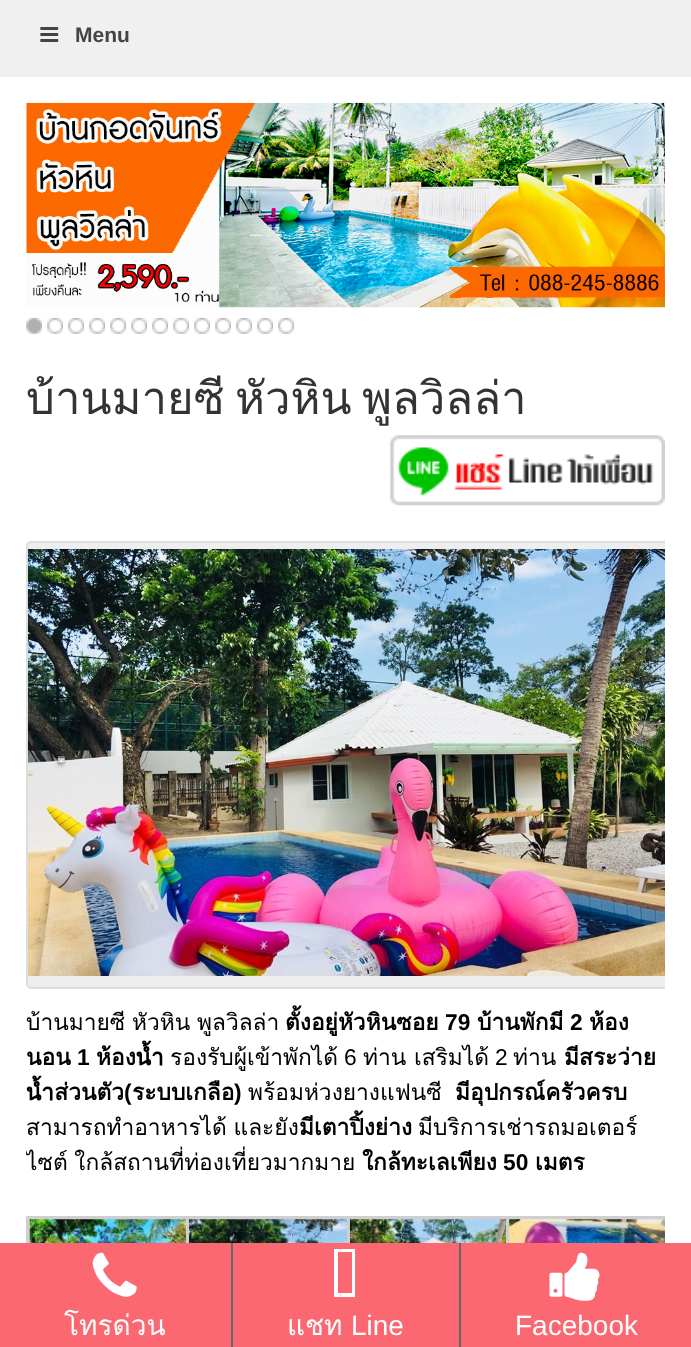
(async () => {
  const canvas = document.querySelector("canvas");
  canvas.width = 691;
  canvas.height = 1347;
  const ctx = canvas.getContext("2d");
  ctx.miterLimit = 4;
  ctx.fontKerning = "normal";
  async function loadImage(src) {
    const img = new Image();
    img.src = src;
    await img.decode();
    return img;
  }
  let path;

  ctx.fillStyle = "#f0f0f0";
  ctx.fillRect(0, 0, 691, 1347);
  ctx.drawImage(await loadImage("img/1.png"), 40, 27, 19, 15);
  ctx.fillStyle = "#ffffff";
  ctx.fillRect(0, 77, 691, 1166);
  ctx.drawImage(await loadImage("img/2.png"), 26, 102, 639, 206);
  ctx.drawImage(await loadImage("img/3.png"), 26, 318, 16, 16);
  ctx.drawImage(await loadImage("img/4.png"), 47, 318, 16, 16);
  ctx.drawImage(await loadImage("img/5.png"), 68, 318, 16, 16);
  ctx.drawImage(await loadImage("img/4.png"), 89, 318, 16, 16);
  ctx.drawImage(await loadImage("img/4.png"), 110, 318, 16, 16);
  ctx.drawImage(await loadImage("img/5.png"), 131, 318, 16, 16);
  ctx.drawImage(await loadImage("img/4.png"), 152, 318, 16, 16);
  ctx.drawImage(await loadImage("img/4.png"), 173, 318, 16, 16);
  ctx.drawImage(await loadImage("img/5.png"), 194, 318, 16, 16);
  ctx.drawImage(await loadImage("img/5.png"), 215, 318, 16, 16);
  ctx.drawImage(await loadImage("img/5.png"), 236, 318, 16, 16);
  ctx.drawImage(await loadImage("img/5.png"), 257, 318, 16, 16);
  ctx.drawImage(await loadImage("img/5.png"), 278, 318, 16, 16);
  ctx.drawImage(await loadImage("img/6.png"), 390, 435, 275, 71);
  ctx.save();
  ctx.beginPath();
  ctx.rect(26, 369, 639, 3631);
  ctx.clip();
  ctx.fillStyle = "#eeeeee";
  ctx.beginPath();
  ctx.roundRect(27, 542, 641, 446, 4);
  ctx.fill();
  ctx.strokeStyle = "#dddddd";
  ctx.lineWidth = 2;
  ctx.stroke();
  ctx.restore();
  ctx.drawImage(await loadImage("img/7.png"), 28, 549, 637, 427);
  ctx.strokeStyle = "#cfcfcf";
  ctx.lineWidth = 4;
  ctx.strokeRect(28, 1218, 163, 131);
  ctx.drawImage(await loadImage("img/8.png"), 29, 1219, 157, 24);
  ctx.strokeRect(188, 1218, 164, 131);
  ctx.drawImage(await loadImage("img/9.png"), 189, 1219, 158, 24);
  ctx.strokeRect(349, 1218, 162, 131);
  ctx.drawImage(await loadImage("img/10.png"), 350, 1219, 156, 24);
  ctx.save();
  ctx.beginPath();
  ctx.rect(26, 369, 639, 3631);
  ctx.clip();
  ctx.strokeRect(508, 1218, 162, 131);
  ctx.restore();
  ctx.drawImage(await loadImage("img/11.png"), 509, 1219, 156, 24);
  ctx.fillStyle = "#fb6872";
  ctx.fillRect(0, 1243, 691, 104);
  ctx.drawImage(await loadImage("img/12.png"), 92, 1252, 45, 45);
  ctx.fillStyle = "#666666";
  ctx.fillRect(459, 1243, 2, 104);
  ctx.fillRect(231, 1243, 2, 104);
  ctx.fillStyle = "#ffffff";
  path = new Path2D("M338 1293H352V1252H338ZM334 1297V1249H355V1297Z");
  ctx.fill(path);
  ctx.drawImage(await loadImage("img/13.png"), 549, 1252, 51, 49);
  ctx.font = "bold 21px Liberation Sans";
  ctx.fillStyle = "#444444";
  ctx.fillText("Menu", 75, 42);
  ctx.save();
  ctx.beginPath();
  ctx.rect(26, 369, 639, 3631);
  ctx.clip();
  ctx.wordSpacing = "-5px";
  ctx.font = "45.5px Loma";
  ctx.fillStyle = "#333333";
  ctx.fillText("บ้านมายซี หัวหิน พูลวิลล่า", 26, 414);
  ctx.wordSpacing = "-1px";
  ctx.font = "22.75px Loma";
  ctx.fillStyle = "#000000";
  ctx.fillText("บ้านมายซี หัวหิน พูลวิลล่า", 26, 1030);
  ctx.restore();
  ctx.font = "bold 22.75px Loma";
  ctx.fillStyle = "#000000";
  ctx.fillText("ตั้งอยู่หัวหินซอย", 285, 1030);
  ctx.font = "bold 22.75px Liberation Sans";
  ctx.fillText("79", 445, 1030);
  ctx.font = "bold 22.75px Loma";
  ctx.fillText("บ้านพักมี", 477, 1030);
  ctx.font = "bold 22.75px Liberation Sans";
  ctx.fillText("2", 570, 1030);
  ctx.font = "bold 22.75px Loma";
  ctx.fillText("ห้อง", 589, 1030);
  ctx.fillText("นอน", 26, 1065);
  ctx.font = "bold 22.75px Liberation Sans";
  ctx.fillText("1", 77, 1065);
  ctx.font = "bold 22.75px Loma";
  ctx.fillText("ห้องน้ำ", 96, 1065);
  ctx.font = "22.75px Loma";
  ctx.fillText("รองรับผู้เข้าพักได้", 170, 1065);
  ctx.font = "22.75px Liberation Sans";
  ctx.fillText("6", 344, 1065);
  ctx.font = "22.75px Loma";
  ctx.fillText("ท่าน เสริมได้", 363, 1065);
  ctx.font = "22.75px Liberation Sans";
  ctx.fillText("2", 495, 1065);
  ctx.font = "22.75px Loma";
  ctx.fillText("ท่าน", 513, 1065);
  ctx.font = "bold 22.75px Loma";
  ctx.fillText("มีสระว่าย", 564, 1065);
  ctx.save();
  ctx.beginPath();
  ctx.rect(26, 369, 639, 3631);
  ctx.clip();
  ctx.fillText("น้ำส่วนตัว", 26, 1100);
  ctx.restore();
  ctx.font = "bold 22.75px Liberation Sans";
  ctx.fillText("(", 124, 1100);
  ctx.font = "bold 22.75px Loma";
  ctx.fillText("ระบบเกลือ", 132, 1100);
  ctx.font = "bold 22.75px Liberation Sans";
  ctx.fillText(")", 234, 1100);
  ctx.font = "22.75px Loma";
  ctx.fillText("พร้อมห่วงยางแฟนซี", 248, 1100);
  ctx.font = "bold 22.75px Loma";
  ctx.fillText("มีอุปกรณ์ครัวครบ", 455, 1100);
  ctx.wordSpacing = "-1px";
  ctx.font = "22.75px Loma";
  ctx.fillText("สามารถทำอาหารได้ และยัง", 26, 1135);
  ctx.wordSpacing = "0px";
  ctx.font = "bold 22.75px Loma";
  ctx.fillText("มีเตาปิ้งย่าง", 299, 1135);
  ctx.font = "22.75px Loma";
  ctx.fillText("มีบริการเช่ารถมอเตอร์", 418, 1135);
  ctx.save();
  ctx.beginPath();
  ctx.rect(26, 369, 639, 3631);
  ctx.clip();
  ctx.wordSpacing = "-1px";
  ctx.fillText("ไซต์ ใกล้สถานที่ท่องเที่ยวมากมาย", 26, 1170);
  ctx.restore();
  ctx.font = "bold 22.75px Loma";
  ctx.fillText("ใกล้ทะเลเพียง", 362, 1170);
  ctx.font = "bold 22.75px Liberation Sans";
  ctx.fillText("50", 503, 1170);
  ctx.font = "bold 22.75px Loma";
  ctx.fillText("เมตร", 535, 1170);
  ctx.font = "28px Loma";
  ctx.fillStyle = "#ffffff";
  ctx.fillText("โทรด่วน", 64, 1335);
  ctx.fillText("แชท", 287, 1335);
  ctx.font = "28px Liberation Sans";
  ctx.fillText("Line", 351, 1335);
  ctx.fillText("Facebook", 515, 1335);
})();
